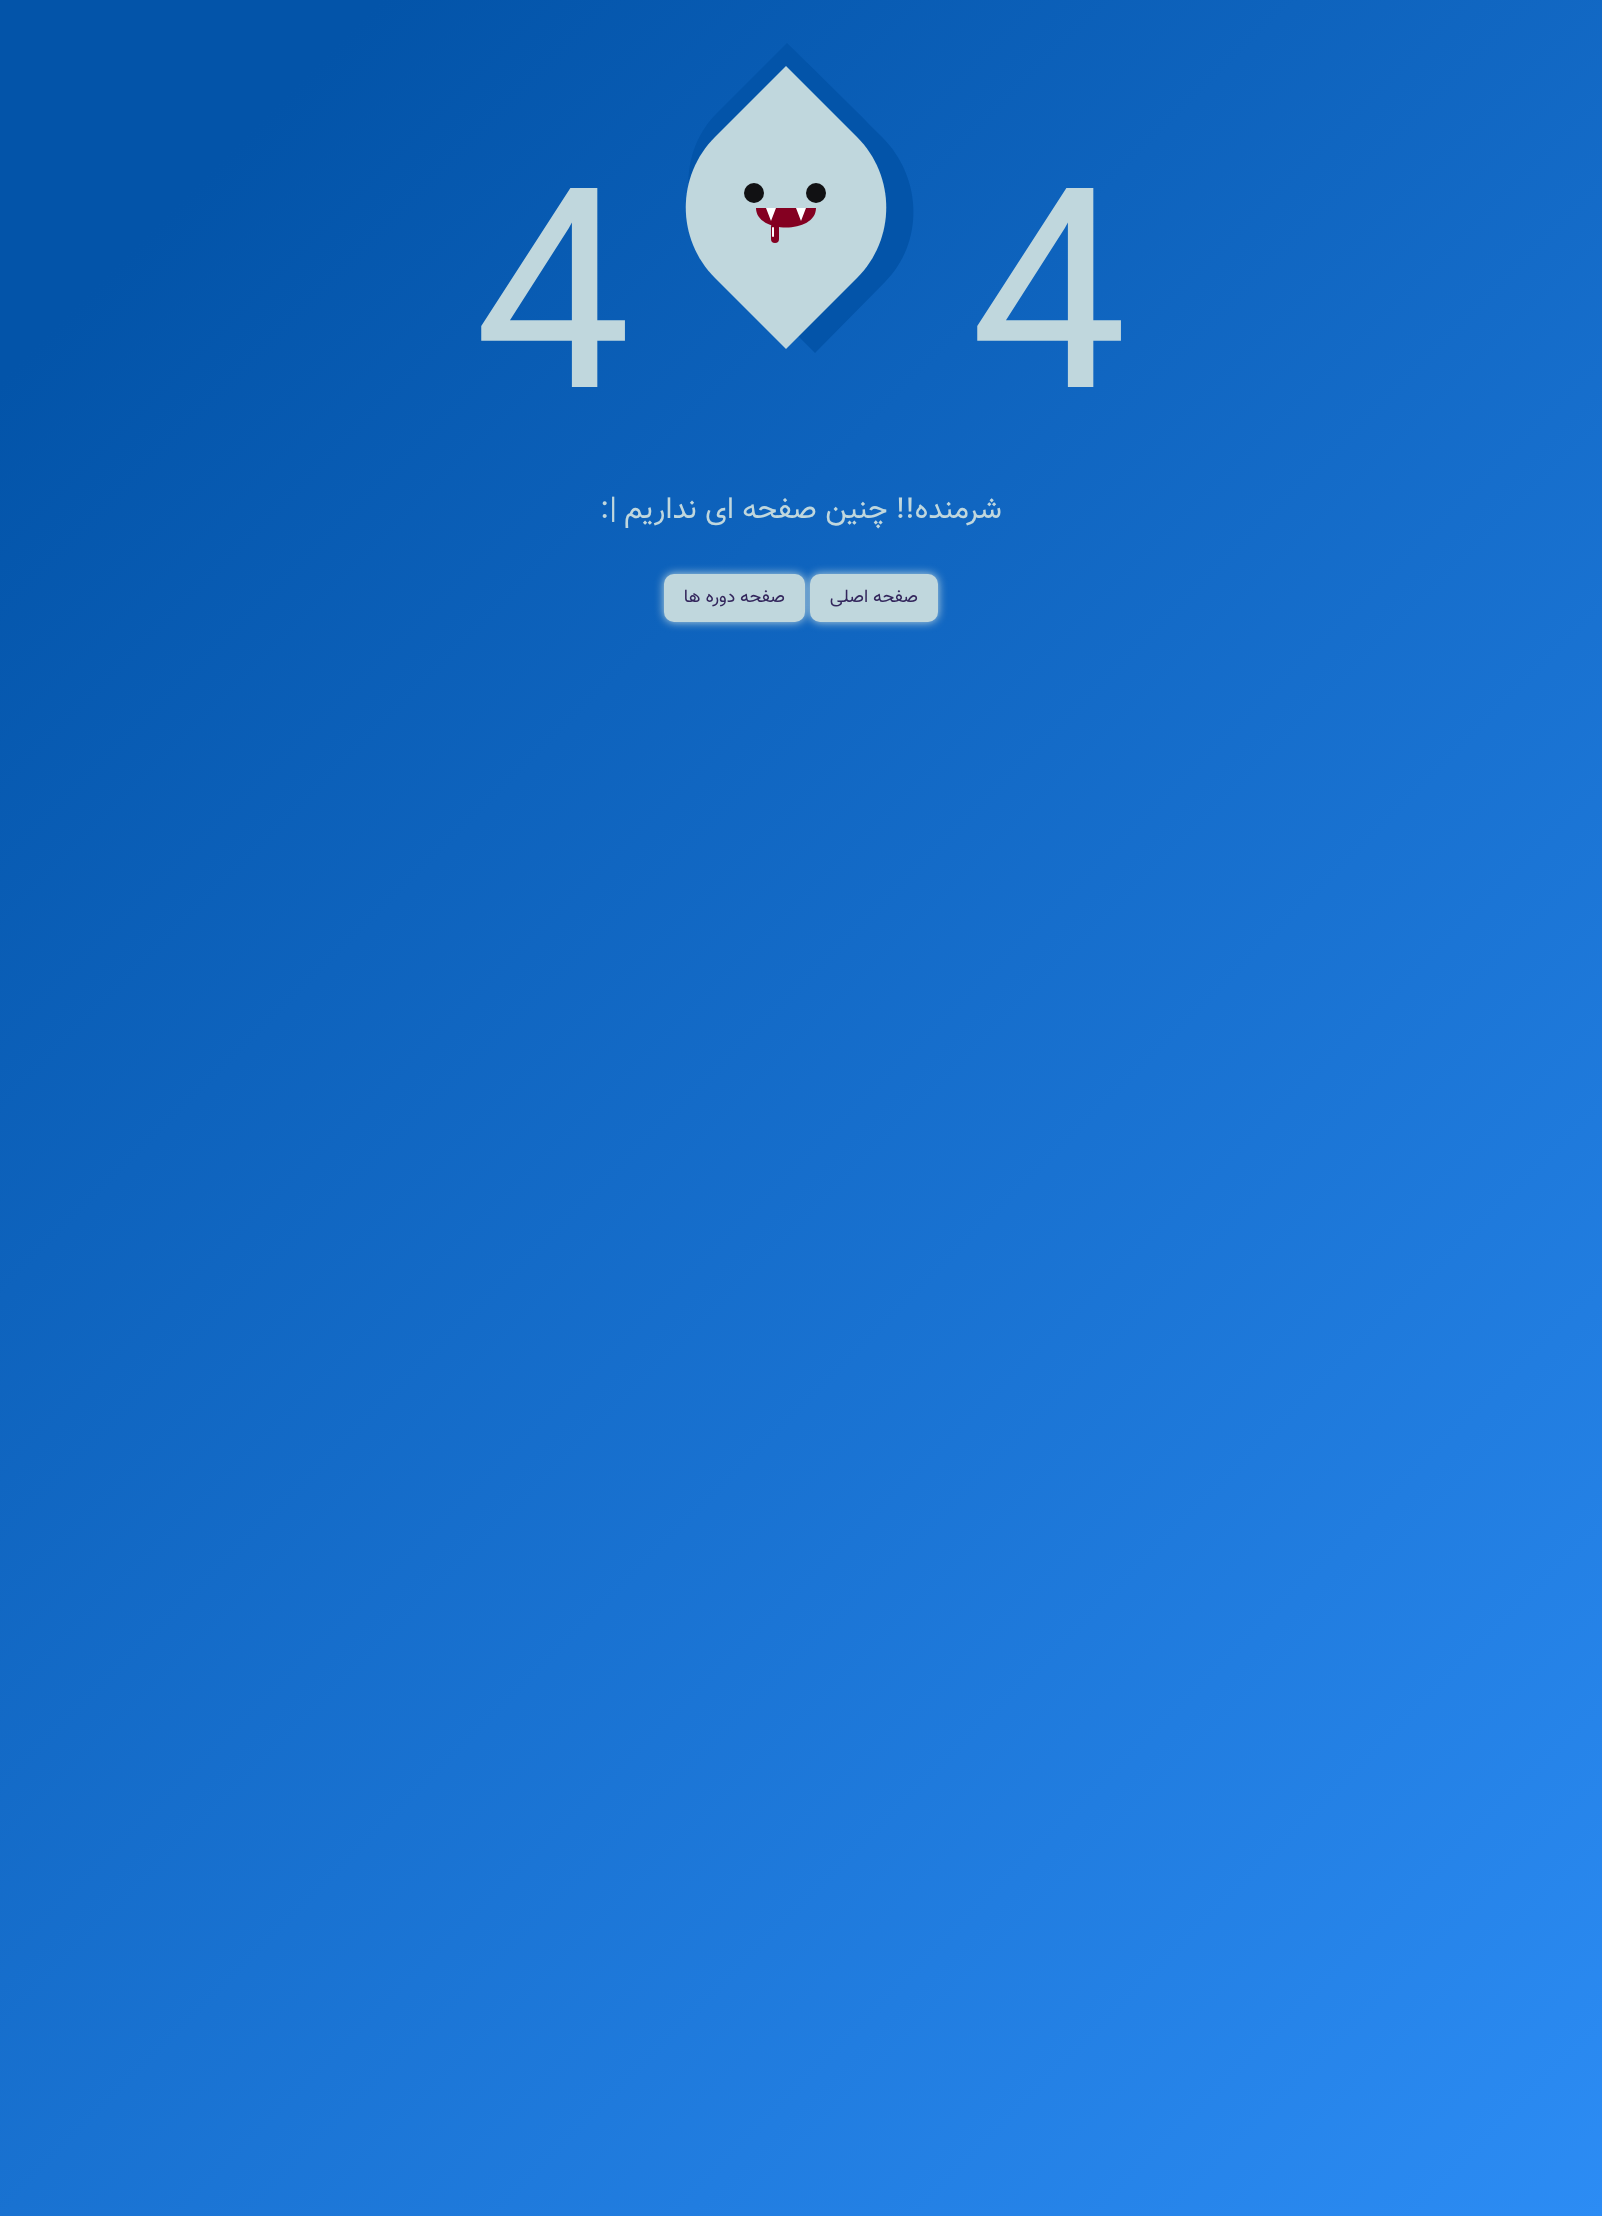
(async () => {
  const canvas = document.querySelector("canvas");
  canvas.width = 1602;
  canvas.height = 2216;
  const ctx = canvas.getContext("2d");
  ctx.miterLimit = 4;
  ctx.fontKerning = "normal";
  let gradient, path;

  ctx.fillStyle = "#ffffff";
  ctx.fillRect(0, 0, 1602, 2216);
  gradient = ctx.createLinearGradient(-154, 154, 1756, 2063);
  gradient.addColorStop(0.1, "#0354a9");
  gradient.addColorStop(1, "#2c8cf4");
  ctx.fillStyle = gradient;
  ctx.fillRect(0, 0, 1602, 2216);
  ctx.fillStyle = "#0354a9";
  path = new Path2D("M787 43L862 117C903 158 904 223 865 262L795 333L720 258C679 217 678 152 717 113Z");
  ctx.fill(path);
  path = new Path2D("M807 63L882 137C923 178 924 243 885 282L815 353L740 278C699 237 698 172 737 133Z");
  ctx.fill(path);
  ctx.fillStyle = "#c0d7dd";
  path = new Path2D("M786 66L857 137C896 176 896 239 857 278L786 349L715 278C676 239 676 176 715 137Z");
  ctx.fill(path);
  ctx.fillStyle = "#111113";
  ctx.beginPath();
  ctx.arc(816, 193, 10, 0, Math.PI * 2);
  ctx.fill();
  ctx.beginPath();
  ctx.arc(754, 193, 10, 0, Math.PI * 2);
  ctx.fill();
  ctx.fillStyle = "#840021";
  path = new Path2D("M756 208H816C816 234 756 234 756 208Z");
  ctx.fill(path);
  ctx.fillStyle = "#ffffff";
  path = new Path2D("M796 208H806L801 221ZM766 208H776L771 221Z");
  ctx.fill(path);
  ctx.fillStyle = "#840021";
  ctx.beginPath();
  ctx.roundRect(771, 223, 8, 20, 4);
  ctx.fill();
  ctx.fillStyle = "#ffffff";
  ctx.beginPath();
  ctx.roundRect(772, 227, 2, 10, 1);
  ctx.fill();
  ctx.fillStyle = "#c0d7dd";
  ctx.filter = "blur(5px)";
  ctx.beginPath();
  ctx.roundRect(664, 574, 141, 48, 10);
  ctx.fill();
  ctx.filter = "none";
  ctx.beginPath();
  ctx.roundRect(664, 574, 141, 48, 10);
  ctx.fill();
  ctx.filter = "blur(5px)";
  ctx.beginPath();
  ctx.roundRect(810, 574, 128, 48, 10);
  ctx.fill();
  ctx.filter = "none";
  ctx.beginPath();
  ctx.roundRect(810, 574, 128, 48, 10);
  ctx.fill();
  ctx.font = "280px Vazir";
  ctx.fillText("4", 970, 387);
  ctx.fillText("4", 474, 387);
  ctx.direction = "rtl";
  ctx.font = "30px Vazir";
  ctx.fillText("شرمنده!! چنین صفحه ای نداریم", 1002, 518);
  ctx.direction = "ltr";
  ctx.fillText(":|", 600, 518);
  ctx.direction = "rtl";
  ctx.font = "18px Vazir";
  ctx.fillStyle = "#33265c";
  ctx.fillText("صفحه اصلی", 918, 602);
  ctx.fillText("صفحه دوره ها", 785, 602);
})();
